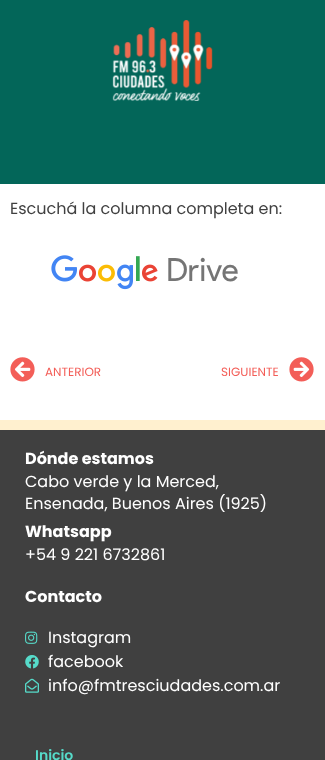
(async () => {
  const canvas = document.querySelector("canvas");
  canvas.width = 325;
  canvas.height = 760;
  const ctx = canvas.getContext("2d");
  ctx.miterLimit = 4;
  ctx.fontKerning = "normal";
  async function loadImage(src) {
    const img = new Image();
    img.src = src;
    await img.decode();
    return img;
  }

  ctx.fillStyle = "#ffffff";
  ctx.fillRect(0, 0, 325, 760);
  ctx.fillStyle = "#036659";
  ctx.fillRect(0, 0, 325, 184);
  ctx.drawImage(await loadImage("img/1.png"), 112, 20, 101, 81);
  ctx.drawImage(await loadImage("img/2.png"), 51, 255, 187, 35);
  ctx.drawImage(await loadImage("img/3.png"), 10, 357, 25, 25);
  ctx.drawImage(await loadImage("img/4.png"), 289, 357, 25, 25);
  ctx.fillStyle = "#fff0cf";
  ctx.fillRect(0, 420, 325, 10);
  ctx.fillStyle = "#404040";
  ctx.fillRect(0, 430, 325, 330);
  ctx.drawImage(await loadImage("img/5.png"), 25, 631, 13, 13);
  ctx.drawImage(await loadImage("img/6.png"), 25, 655, 14, 14);
  ctx.drawImage(await loadImage("img/7.png"), 25, 678, 14, 15);
  ctx.font = "16px Poppins";
  ctx.fillText("Escuchá la columna completa en:", 10, 214);
  ctx.font = "12px Poppins";
  ctx.fillStyle = "#f35e58";
  ctx.fillText("ANTERIOR", 45, 376);
  ctx.fillText("SIGUIENTE", 221, 376);
  ctx.font = "bold 16px Poppins";
  ctx.fillStyle = "#ffffff";
  ctx.fillText("Dónde estamos", 25, 464);
  ctx.font = "16px Poppins";
  ctx.fillText("Cabo verde y la Merced,", 25, 487);
  ctx.fillText("Ensenada, Buenos Aires (1925)", 25, 509);
  ctx.font = "bold 16px Poppins";
  ctx.fillText("Whatsapp", 25, 537);
  ctx.font = "16px Poppins";
  ctx.fillText("+54 9 221 6732861", 25, 560);
  ctx.font = "bold 16px Poppins";
  ctx.fillText("Contacto", 25, 602);
  ctx.font = "16px Poppins";
  for (const [text, x, y] of [
    ["Instagram", 48, 643],
    ["facebook", 48, 667],
    ["info@fmtresciudades.com.ar", 48, 691],
  ]) {
    ctx.fillText(text, x, y);
  }
  ctx.font = "600 14px Poppins";
  ctx.fillStyle = "#56dbca";
  ctx.fillText("Inicio", 35, 760);
})();
